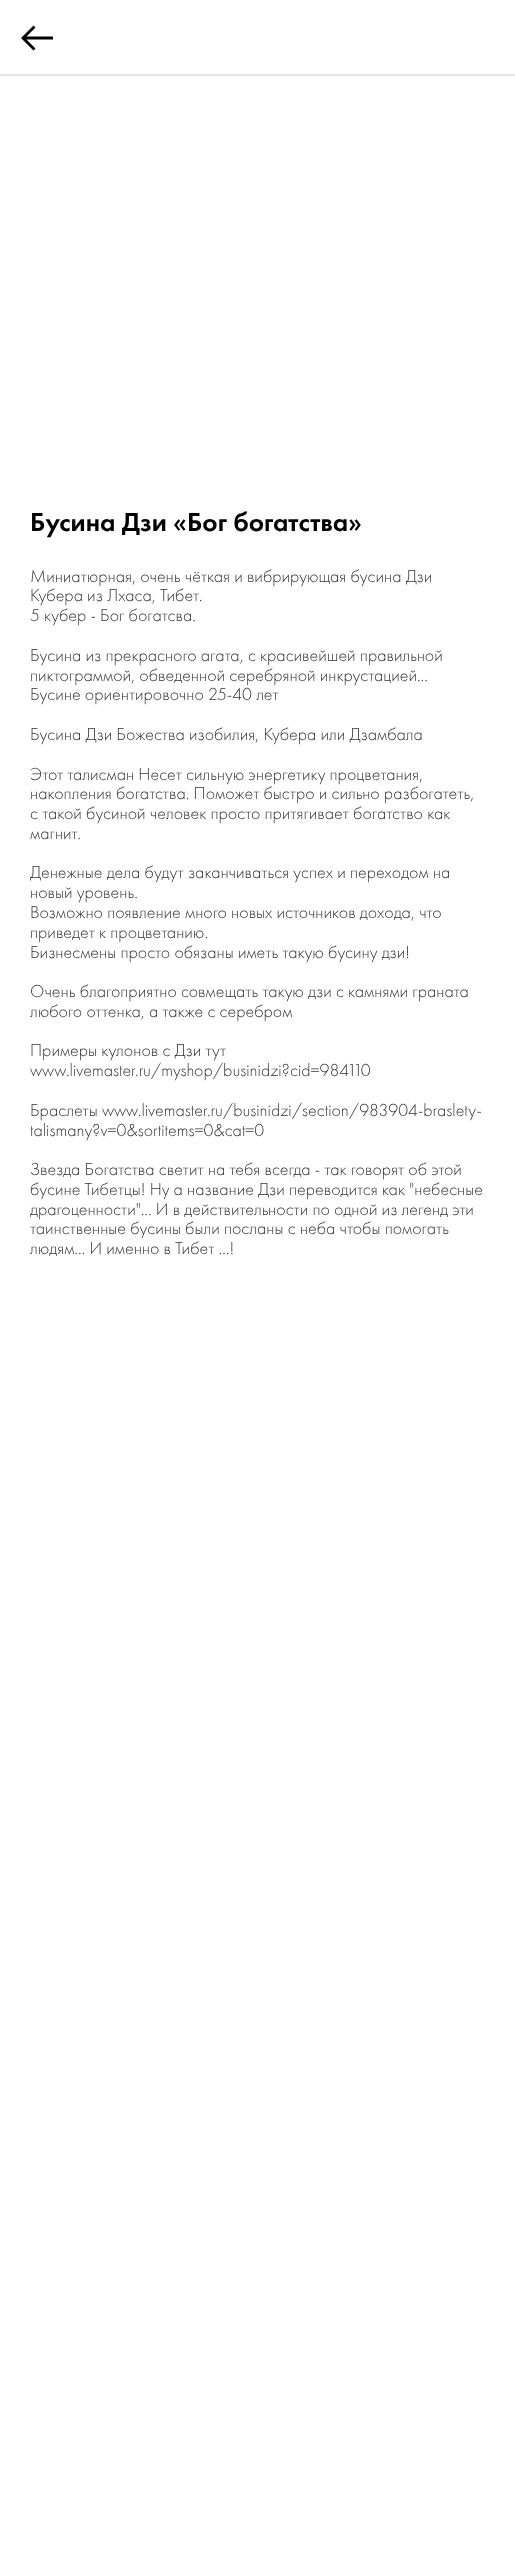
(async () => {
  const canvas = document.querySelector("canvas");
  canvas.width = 515;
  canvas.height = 2567;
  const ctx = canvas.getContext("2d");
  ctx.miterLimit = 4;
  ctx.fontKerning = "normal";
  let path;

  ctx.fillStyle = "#ffffff";
  ctx.fillRect(0, 0, 515, 2567);
  ctx.fillStyle = "#e6e6e6";
  ctx.fillRect(0, 74, 515, 2);
  ctx.fillStyle = "#000000";
  path = new Path2D("M33.5 25.5L35.5 27.5L26.5 36.5H53V39.5H26.5L35.5 48.5L33.5 50.5L21 38Z");
  ctx.fill(path);
  ctx.font = "500 27px Futura PT";
  ctx.fillText("Бусина Дзи «Бог богатства»", 30, 531);
  ctx.font = "300 18px Futura PT";
  ctx.fillStyle = "#333333";
  for (const [text, x, y] of [
    ["Миниатюрная, очень чёткая и вибрирующая бусина Дзи", 30, 582],
    ["Кубера из Лхаса, Тибет.", 30, 601],
    ["5 кубер - Бог богатсва.", 30, 621],
    ["Бусина из прекрасного агата, с красивейшей правильной", 30, 661],
    ["пиктограммой, обведенной серебряной инкрустацией...", 30, 681],
    ["Бусине ориентировочно 25-40 лет", 30, 700],
    ["Бусина Дзи Божества изобилия, Кубера или Дзамбала", 30, 740],
    ["Этот талисман Несет сильную энергетику процветания,", 30, 780],
    ["накопления богатства. Поможет быстро и сильно разбогатеть,", 30, 799],
    ["с такой бусиной человек просто притягивает богатство как", 30, 819],
    ["магнит.", 30, 839],
    ["Денежные дела будут заканчиваться успех и переходом на", 30, 878],
    ["новый уровень.", 30, 898],
    ["Возможно появление много новых источников дохода, что", 30, 918],
    ["приведет к процветанию.", 30, 938],
    ["Бизнесмены просто обязаны иметь такую бусину дзи!", 30, 958],
    ["Очень благоприятно совмещать такую дзи с камнями граната", 30, 997],
    ["любого оттенка, а также с серебром", 30, 1017],
    ["Примеры кулонов с Дзи тут", 30, 1056],
    ["www.livemaster.ru/myshop/businidzi?cid=984110", 30, 1076],
    ["Браслеты www.livemaster.ru/businidzi/section/983904-braslety-", 30, 1116],
    ["talismany?v=0&sortitems=0&cat=0", 30, 1136],
    ["Звезда Богатства светит на тебя всегда - так говорят об этой", 30, 1175],
    ["бусине Тибетцы! Ну а название Дзи переводится как \"небесные", 30, 1195],
    ["драгоценности\"... И в действительности по одной из легенд эти", 30, 1215],
    ["таинственные бусины были посланы с неба чтобы помогать", 30, 1234],
    ["людям... И именно в Тибет ...!", 30, 1254],
  ]) {
    ctx.fillText(text, x, y);
  }
})();
